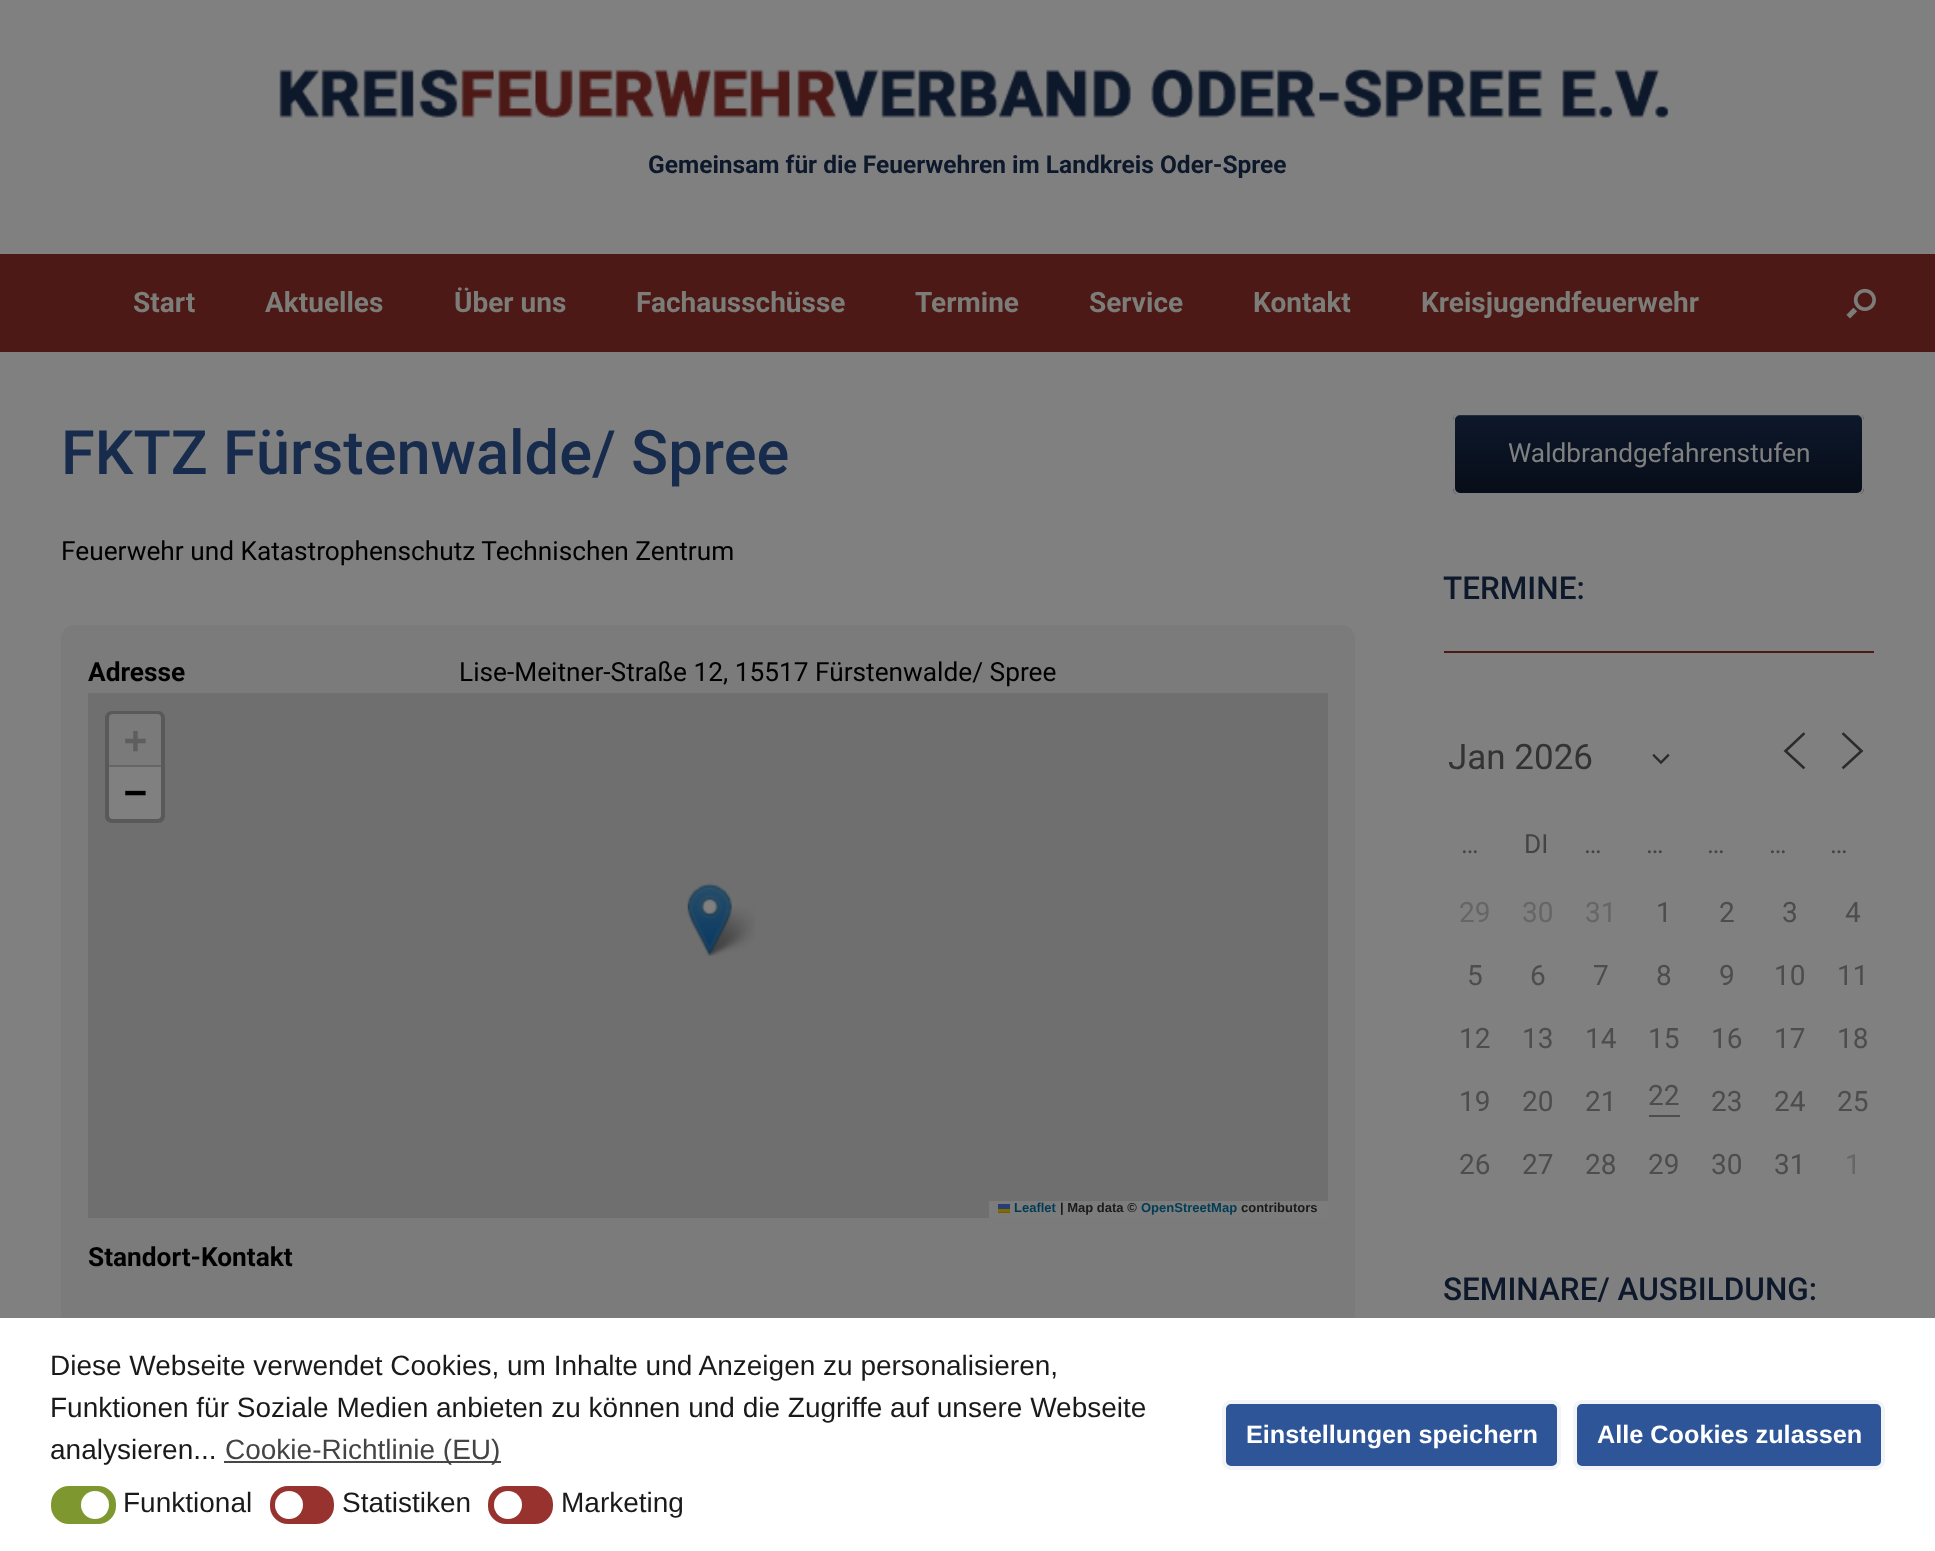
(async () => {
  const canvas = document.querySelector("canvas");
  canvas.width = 1935;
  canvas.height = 1551;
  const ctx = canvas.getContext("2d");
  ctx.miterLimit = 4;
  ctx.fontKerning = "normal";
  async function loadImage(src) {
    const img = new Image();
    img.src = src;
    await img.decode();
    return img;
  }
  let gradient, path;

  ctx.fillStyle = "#808080";
  ctx.fillRect(0, 0, 1935, 1551);
  ctx.drawImage(await loadImage("img/1.png"), 279, 69, 1390, 49);
  ctx.fillStyle = "#4c1917";
  ctx.fillRect(0, 254, 1935, 98);
  ctx.drawImage(await loadImage("img/2.png"), 1846, 288, 30, 31);
  ctx.fillStyle = "#7b7b7b";
  ctx.beginPath();
  ctx.roundRect(61, 625, 1294, 738, 14);
  ctx.fill();
  ctx.fillStyle = "#6f6f6f";
  ctx.fillRect(88, 693, 1240, 525);
  ctx.fillStyle = "#595959";
  path = new Path2D("M112 711H158C162 711 165 714 165 718V816C165 820 162 823 158 823H112C108 823 105 820 105 816V718C105 714 108 711 112 711Z");
  ctx.fill(path);
  ctx.fillStyle = "#7a7a7a";
  ctx.beginPath();
  ctx.roundRect(109, 714, 52, 53, [4, 4, 0, 0]);
  ctx.fill();
  ctx.fillStyle = "#666666";
  ctx.fillRect(109, 765, 52, 2);
  ctx.fillStyle = "#808080";
  ctx.beginPath();
  ctx.roundRect(109, 767, 52, 52, [0, 0, 4, 4]);
  ctx.fill();
  for (const [x, y, w, h, color] of [
    [989, 1201, 339, 17, "#7c7c7c"],
    [998, 1204, 12, 5, "#263e71"],
    [998, 1209, 12, 3, "#806b00"],
    [998, 1212, 12, 1, "#705e00"],
  ]) {
    ctx.fillStyle = color;
    ctx.fillRect(x, y, w, h);
  }
  ctx.drawImage(await loadImage("img/4.png"), 703, 906, 52, 50);
  ctx.drawImage(await loadImage("img/3.png"), 687, 883, 45, 73);
  ctx.save();
  ctx.beginPath();
  ctx.roundRect(1453, 413, 411, 82, 7);
  ctx.clip();
  gradient = ctx.createLinearGradient(1454, 494, 1454, 415);
  gradient.addColorStop(0, "#070d18");
  gradient.addColorStop(1, "#0d182b");
  ctx.fillStyle = gradient;
  ctx.fillRect(1453, 415, 411, 79);
  ctx.restore();
  ctx.fillStyle = "#242d3c";
  path = new Path2D("M1459 416H1857C1860 416 1862 419 1862 421V420C1862 417 1860 415 1857 415H1459C1456 415 1454 417 1454 420V421C1454 419 1456 416 1459 416Z");
  ctx.fill(path);
  ctx.beginPath();
  ctx.roundRect(1454, 414, 409, 80, 6);
  ctx.strokeStyle = "#808080";
  ctx.lineWidth = 2;
  ctx.stroke();
  ctx.fillStyle = "#4c1917";
  ctx.fillRect(1444, 651, 430, 2);
  path = new Path2D("M1654 755.5L1661 762.5L1668 755.5");
  ctx.strokeStyle = "#2b2b2b";
  ctx.lineWidth = 2.3;
  ctx.lineCap = "square";
  ctx.stroke(path);
  path = new Path2D("M1803.5 767.5L1785.5 751L1803.5 734");
  ctx.lineWidth = 2.6;
  ctx.stroke(path);
  path = new Path2D("M1843.5 767.5L1861.5 751L1843.5 734");
  ctx.stroke(path);
  for (const [x, y, w, h, color] of [
    [1649, 1115, 31, 2, "#4d4d4d"],
    [0, 1318, 1935, 233, "#ffffff"],
    [224, 1461, 277, 2, "#474747"],
  ]) {
    ctx.fillStyle = color;
    ctx.fillRect(x, y, w, h);
  }
  ctx.fillStyle = "#7e972e";
  ctx.beginPath();
  ctx.roundRect(51, 1486, 65, 38, 18);
  ctx.fill();
  ctx.fillStyle = "#ffffff";
  ctx.beginPath();
  ctx.arc(95, 1505, 14, 0, Math.PI * 2);
  ctx.fill();
  ctx.fillStyle = "#97322e";
  ctx.beginPath();
  ctx.roundRect(270, 1486, 64, 38, 18);
  ctx.fill();
  ctx.fillStyle = "#ffffff";
  ctx.beginPath();
  ctx.arc(289, 1505, 14, 0, Math.PI * 2);
  ctx.fill();
  ctx.fillStyle = "#97322e";
  ctx.beginPath();
  ctx.roundRect(488, 1486, 65, 38, 18);
  ctx.fill();
  ctx.fillStyle = "#ffffff";
  ctx.beginPath();
  ctx.arc(508, 1505, 14, 0, Math.PI * 2);
  ctx.fill();
  ctx.fillStyle = "#2e5597";
  ctx.beginPath();
  ctx.roundRect(1224, 1402, 335, 66, 7);
  ctx.fill();
  ctx.strokeStyle = "#f2f4f8";
  ctx.lineWidth = 4;
  ctx.stroke();
  ctx.beginPath();
  ctx.roundRect(1575, 1402, 308, 66, 7);
  ctx.fill();
  ctx.stroke();
  ctx.font = "bold 24.5px Roboto";
  ctx.fillStyle = "#0d182b";
  ctx.fillText("Gemeinsam für die Feuerwehren im Landkreis Oder-Spree", 648, 173);
  ctx.font = "bold 28px Roboto";
  ctx.fillStyle = "#7c7d78";
  for (const [text, x, y] of [
    ["Start", 133, 312],
    ["Aktuelles", 265, 312],
    ["Über uns", 454, 312],
    ["Fachausschüsse", 636, 312],
    ["Termine", 915, 312],
    ["Service", 1089, 312],
    ["Kontakt", 1253, 312],
    ["Kreisjugendfeuerwehr", 1421, 312],
  ]) {
    ctx.fillText(text, x, y);
  }
  ctx.font = "500 61.25px Roboto";
  ctx.fillStyle = "#172b4c";
  ctx.fillText("FKTZ Fürstenwalde/ Spree", 61, 474);
  ctx.font = "26.25px Roboto";
  ctx.fillStyle = "#000000";
  ctx.fillText("Feuerwehr und Katastrophenschutz Technischen Zentrum", 61, 560);
  ctx.font = "bold 26.25px Roboto";
  ctx.fillText("Adresse", 88, 681);
  ctx.font = "26.25px Roboto";
  ctx.fillText("Lise-Meitner-Straße 12, 15517 Fürstenwalde/ Spree", 459, 681);
  ctx.font = "bold 38px DejaVu Sans Mono";
  ctx.fillStyle = "#5e5e5e";
  ctx.fillText("+", 124, 753);
  ctx.fillStyle = "#000000";
  ctx.fillText("−", 124, 805);
  ctx.font = "bold 13px Liberation Sans";
  ctx.fillStyle = "#003c54";
  ctx.fillText("Leaflet", 1014, 1212);
  ctx.fillStyle = "#1a1a1a";
  ctx.fillText("| Map data ©", 1060, 1212);
  ctx.fillStyle = "#003c54";
  ctx.fillText("OpenStreetMap", 1141, 1212);
  ctx.fillStyle = "#1a1a1a";
  ctx.fillText("contributors", 1241, 1212);
  ctx.font = "bold 26.25px Roboto";
  ctx.fillStyle = "#000000";
  ctx.fillText("Standort-Kontakt", 88, 1266);
  ctx.font = "26.25px Roboto";
  ctx.fillStyle = "#808080";
  ctx.fillText("Waldbrandgefahrenstufen", 1508, 462);
  ctx.font = "500 31.5px Roboto";
  ctx.fillStyle = "#0d182b";
  ctx.fillText("TERMINE:", 1443, 599);
  ctx.font = "35px Roboto";
  ctx.fillStyle = "#333333";
  ctx.fillText("Jan 2026", 1448, 769);
  ctx.font = "26.25px Roboto";
  ctx.fillStyle = "#444444";
  for (const [text, x, y] of [
    ["…", 1461, 853],
    ["DI", 1524, 853],
    ["…", 1584, 853],
    ["…", 1646, 853],
    ["…", 1707, 853],
    ["…", 1769, 853],
    ["…", 1830, 853],
  ]) {
    ctx.fillText(text, x, y);
  }
  ctx.font = "28px Roboto";
  ctx.fillStyle = "#666666";
  for (const [text, x, y] of [
    ["29", 1459, 922],
    ["30", 1522, 922],
    ["31", 1585, 922],
  ]) {
    ctx.fillText(text, x, y);
  }
  ctx.fillStyle = "#4d4d4d";
  for (const [text, x, y] of [
    ["1", 1656, 922],
    ["2", 1719, 922],
    ["3", 1782, 922],
    ["4", 1845, 922],
    ["5", 1467, 985],
    ["6", 1530, 985],
    ["7", 1593, 985],
    ["8", 1656, 985],
    ["9", 1719, 985],
    ["10", 1774, 985],
    ["11", 1837, 985],
    ["12", 1459, 1048],
    ["13", 1522, 1048],
    ["14", 1585, 1048],
    ["15", 1648, 1048],
    ["16", 1711, 1048],
    ["17", 1774, 1048],
    ["18", 1837, 1048],
    ["19", 1459, 1111],
    ["20", 1522, 1111],
    ["21", 1585, 1111],
    ["22", 1648, 1105],
    ["23", 1711, 1111],
    ["24", 1774, 1111],
    ["25", 1837, 1111],
    ["26", 1459, 1174],
    ["27", 1522, 1174],
    ["28", 1585, 1174],
    ["29", 1648, 1174],
    ["30", 1711, 1174],
    ["31", 1774, 1174],
  ]) {
    ctx.fillText(text, x, y);
  }
  ctx.fillStyle = "#666666";
  ctx.fillText("1", 1845, 1174);
  ctx.font = "500 31.5px Roboto";
  ctx.fillStyle = "#0d182b";
  ctx.fillText("SEMINARE/ AUSBILDUNG:", 1443, 1300);
  ctx.font = "28px Liberation Sans";
  ctx.fillStyle = "#1a1a1a";
  for (const [text, x, y] of [
    ["Diese Webseite verwendet Cookies, um Inhalte und Anzeigen zu personalisieren,", 50, 1375],
    ["Funktionen für Soziale Medien anbieten zu können und die Zugriffe auf unsere Webseite", 50, 1417],
    ["analysieren...", 50, 1459],
  ]) {
    ctx.fillText(text, x, y);
  }
  ctx.fillStyle = "#444444";
  ctx.fillText("Cookie-Richtlinie (EU)", 225, 1459);
  ctx.fillStyle = "#1a1a1a";
  for (const [text, x, y] of [
    ["Funktional", 123, 1512],
    ["Statistiken", 342, 1512],
    ["Marketing", 561, 1512],
  ]) {
    ctx.fillText(text, x, y);
  }
  ctx.font = "bold 25.25px Liberation Sans";
  ctx.fillStyle = "#ffffff";
  ctx.fillText("Einstellungen speichern", 1246, 1443);
  ctx.fillText("Alle Cookies zulassen", 1597, 1443);
})();
